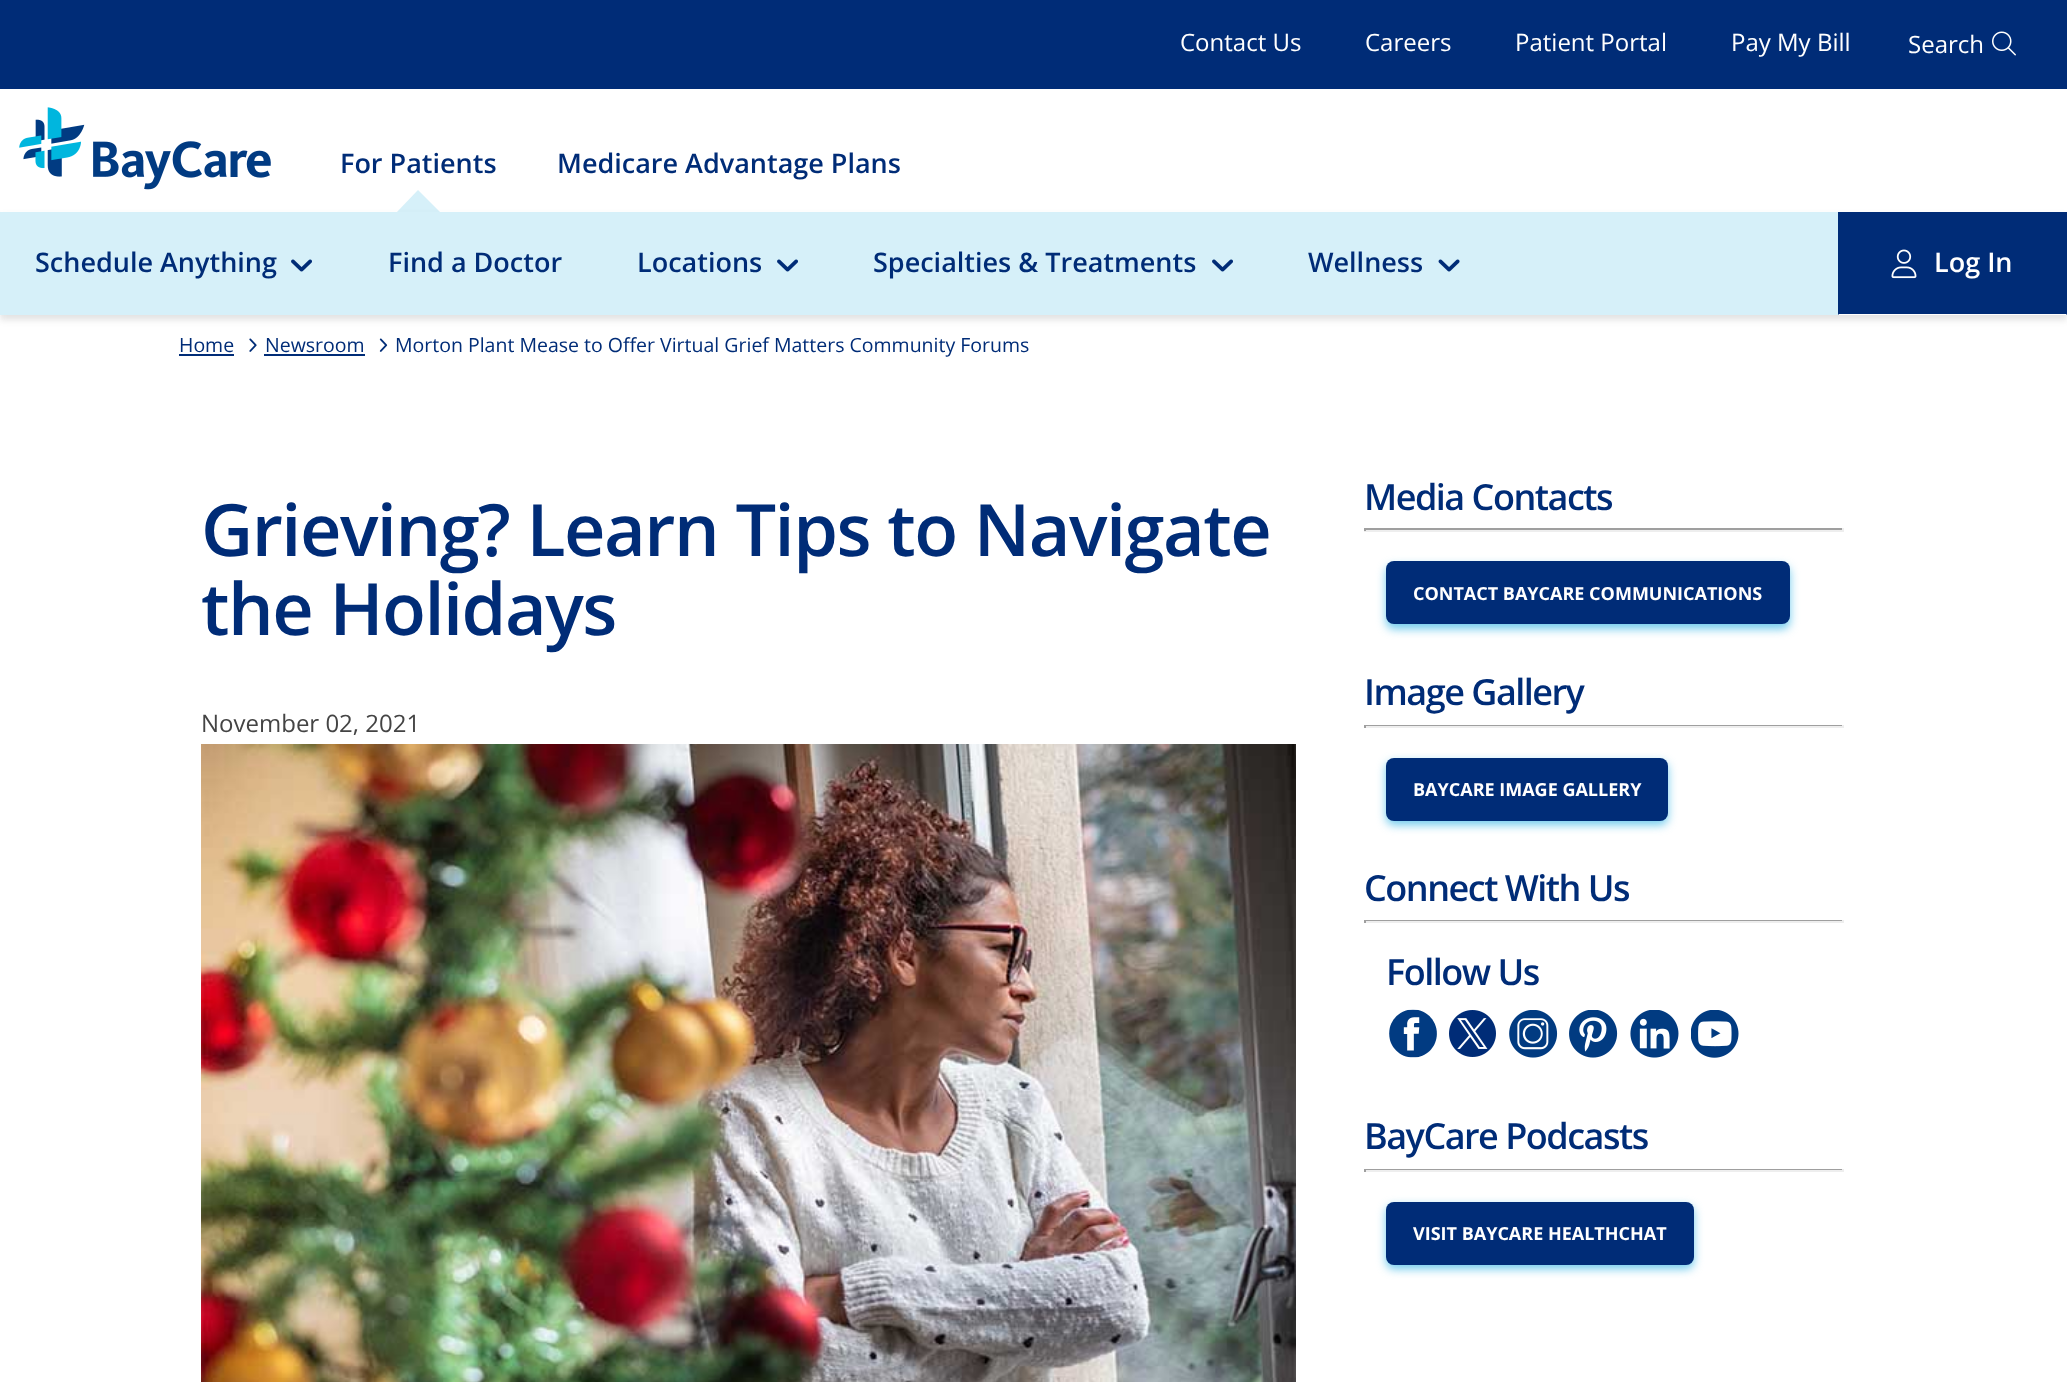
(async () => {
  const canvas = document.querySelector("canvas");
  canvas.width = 2067;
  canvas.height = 1382;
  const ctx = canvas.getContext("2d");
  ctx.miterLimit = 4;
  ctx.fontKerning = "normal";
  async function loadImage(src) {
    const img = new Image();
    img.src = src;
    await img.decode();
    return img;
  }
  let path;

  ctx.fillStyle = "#ffffff";
  ctx.fillRect(0, 0, 2067, 1382);
  ctx.fillStyle = "#002c77";
  ctx.fillRect(0, 0, 2067, 89);
  ctx.drawImage(await loadImage("img/1.png"), 1992, 31, 24, 25);
  ctx.drawImage(await loadImage("img/2.png"), 19, 107, 252, 83);
  ctx.fillStyle = "#d6f0f9";
  path = new Path2D("M441 213H396L418 190Z");
  ctx.fill(path);
  ctx.fillStyle = "rgba(65, 65, 65, 0.15)";
  ctx.filter = "blur(3px)";
  ctx.beginPath();
  ctx.rect(0, 216, 2067, 104);
  ctx.fill();
  ctx.filter = "none";
  ctx.fillStyle = "#d6f0f9";
  ctx.fillRect(0, 212, 1838, 103);
  ctx.drawImage(await loadImage("img/3.png"), 291, 259, 21, 13);
  ctx.drawImage(await loadImage("img/3.png"), 777, 259, 21, 13);
  ctx.drawImage(await loadImage("img/3.png"), 1212, 259, 21, 13);
  ctx.drawImage(await loadImage("img/4.png"), 1438, 259, 22, 13);
  ctx.fillStyle = "#002c77";
  ctx.fillRect(1838, 212, 229, 103);
  ctx.fillStyle = "#ffffff";
  path = new Path2D("M2067 315H1838L1839 314H2066Z");
  ctx.fill(path);
  ctx.drawImage(await loadImage("img/5.png"), 1891, 249, 26, 30);
  ctx.fillStyle = "#002c77";
  ctx.fillRect(179, 354, 55, 2);
  ctx.drawImage(await loadImage("img/6.png"), 249, 338, 8, 14);
  ctx.fillRect(264, 354, 101, 2);
  ctx.drawImage(await loadImage("img/7.png"), 379, 338, 9, 14);
  ctx.drawImage(await loadImage("img/8.png"), 201, 744, 1095, 638);
  for (const [x, y, w, h, color] of [
    [1364, 528, 480, 2, "#9f9f9f"],
    [1842, 528, 2, 3, "#eeeeee"],
    [1364, 530, 480, 2, "#eeeeee"],
    [1364, 528, 2, 3, "#9f9f9f"],
  ]) {
    ctx.fillStyle = color;
    ctx.fillRect(x, y, w, h);
  }
  ctx.fillStyle = "rgba(51, 181, 229, 0.7)";
  ctx.filter = "blur(5px)";
  ctx.beginPath();
  ctx.roundRect(1386, 566, 404, 63, 8);
  ctx.fill();
  ctx.filter = "none";
  ctx.fillStyle = "#002c77";
  ctx.beginPath();
  ctx.roundRect(1386, 561, 404, 63, 8);
  ctx.fill();
  for (const [x, y, w, h, color] of [
    [1364, 725, 480, 1, "#9f9f9f"],
    [1842, 725, 2, 3, "#eeeeee"],
    [1364, 726, 480, 2, "#eeeeee"],
    [1364, 725, 2, 3, "#9f9f9f"],
  ]) {
    ctx.fillStyle = color;
    ctx.fillRect(x, y, w, h);
  }
  ctx.fillStyle = "rgba(51, 181, 229, 0.7)";
  ctx.filter = "blur(5px)";
  ctx.beginPath();
  ctx.roundRect(1386, 762, 282, 63, 8);
  ctx.fill();
  ctx.filter = "none";
  ctx.fillStyle = "#002c77";
  ctx.beginPath();
  ctx.roundRect(1386, 758, 282, 63, 8);
  ctx.fill();
  for (const [x, y, w, h, color] of [
    [1364, 920, 480, 1, "#9f9f9f"],
    [1842, 920, 2, 3, "#eeeeee"],
    [1364, 921, 480, 2, "#eeeeee"],
    [1364, 920, 2, 3, "#9f9f9f"],
  ]) {
    ctx.fillStyle = color;
    ctx.fillRect(x, y, w, h);
  }
  ctx.drawImage(await loadImage("img/9.png"), 1389, 1009, 48, 49);
  ctx.drawImage(await loadImage("img/10.png"), 1449, 1010, 47, 47);
  ctx.drawImage(await loadImage("img/11.png"), 1509, 1010, 49, 48);
  ctx.drawImage(await loadImage("img/12.png"), 1569, 1010, 49, 48);
  ctx.drawImage(await loadImage("img/13.png"), 1630, 1010, 49, 48);
  ctx.drawImage(await loadImage("img/14.png"), 1691, 1010, 48, 48);
  for (const [x, y, w, h, color] of [
    [1364, 1169, 480, 1, "#9f9f9f"],
    [1842, 1169, 2, 3, "#eeeeee"],
    [1364, 1170, 480, 2, "#eeeeee"],
    [1364, 1169, 2, 3, "#9f9f9f"],
  ]) {
    ctx.fillStyle = color;
    ctx.fillRect(x, y, w, h);
  }
  ctx.fillStyle = "rgba(51, 181, 229, 0.7)";
  ctx.filter = "blur(5px)";
  ctx.beginPath();
  ctx.roundRect(1386, 1206, 308, 63, 8);
  ctx.fill();
  ctx.filter = "none";
  ctx.fillStyle = "#002c77";
  ctx.beginPath();
  ctx.roundRect(1386, 1202, 308, 63, 8);
  ctx.fill();
  ctx.font = "24px Open Sans";
  ctx.fillStyle = "#ffffff";
  for (const [text, x, y] of [
    ["Contact Us", 1180, 51],
    ["Careers", 1365, 51],
    ["Patient Portal", 1515, 51],
    ["Pay My Bill", 1731, 51],
    ["Search", 1908, 53],
  ]) {
    ctx.fillText(text, x, y);
  }
  ctx.font = "600 27px Open Sans";
  ctx.fillStyle = "#002c77";
  for (const [text, x, y] of [
    ["For Patients", 340, 173],
    ["Medicare Advantage Plans", 557, 173],
    ["Schedule Anything", 35, 272],
    ["Find a Doctor", 388, 272],
    ["Locations", 637, 272],
    ["Specialties & Treatments", 873, 272],
    ["Wellness", 1308, 272],
  ]) {
    ctx.fillText(text, x, y);
  }
  ctx.fillStyle = "#ffffff";
  ctx.fillText("Log In", 1934, 272);
  ctx.font = "19.5px Open Sans";
  ctx.fillStyle = "#002c77";
  for (const [text, x, y] of [
    ["Home", 179, 352],
    ["Newsroom", 265, 352],
    ["Morton Plant Mease to Offer Virtual Grief Matters Community Forums", 395, 352],
  ]) {
    ctx.fillText(text, x, y);
  }
  ctx.letterSpacing = "-1.5px";
  ctx.font = "600 72px Open Sans";
  ctx.fillText("Grieving? Learn Tips to Navigate", 201, 556);
  ctx.fillText("the Holidays", 201, 635);
  ctx.letterSpacing = "0px";
  ctx.font = "24px Open Sans";
  ctx.fillStyle = "#444444";
  ctx.fillText("November 02, 2021", 201, 732);
  ctx.letterSpacing = "-1.5px";
  ctx.font = "600 36px Open Sans";
  ctx.fillStyle = "#002c77";
  ctx.fillText("Media Contacts", 1364, 510);
  ctx.letterSpacing = "0px";
  ctx.font = "bold 18px Open Sans";
  ctx.fillStyle = "#ffffff";
  ctx.fillText("CONTACT BAYCARE COMMUNICATIONS", 1413, 600);
  ctx.letterSpacing = "-1.5px";
  ctx.font = "600 36px Open Sans";
  ctx.fillStyle = "#002c77";
  ctx.fillText("Image Gallery", 1364, 705);
  ctx.letterSpacing = "0px";
  ctx.font = "bold 18px Open Sans";
  ctx.fillStyle = "#ffffff";
  ctx.fillText("BAYCARE IMAGE GALLERY", 1413, 796);
  ctx.letterSpacing = "-1.5px";
  ctx.font = "600 36px Open Sans";
  ctx.fillStyle = "#002c77";
  for (const [text, x, y] of [
    ["Connect With Us", 1364, 901],
    ["Follow Us", 1386, 985],
    ["BayCare Podcasts", 1364, 1149],
  ]) {
    ctx.fillText(text, x, y);
  }
  ctx.letterSpacing = "0px";
  ctx.font = "bold 18px Open Sans";
  ctx.fillStyle = "#ffffff";
  ctx.fillText("VISIT BAYCARE HEALTHCHAT", 1413, 1240);
})();
